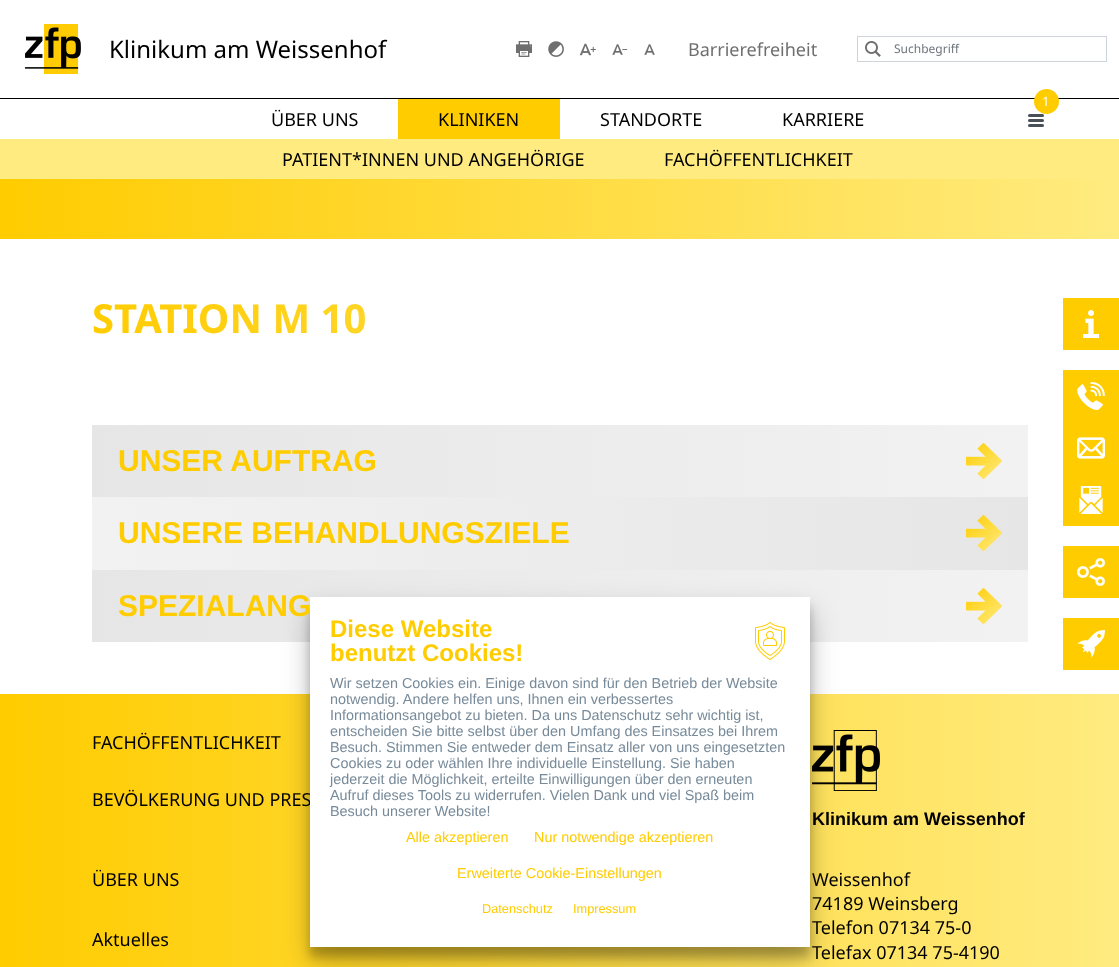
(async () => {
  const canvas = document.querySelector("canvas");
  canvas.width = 1119;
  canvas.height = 967;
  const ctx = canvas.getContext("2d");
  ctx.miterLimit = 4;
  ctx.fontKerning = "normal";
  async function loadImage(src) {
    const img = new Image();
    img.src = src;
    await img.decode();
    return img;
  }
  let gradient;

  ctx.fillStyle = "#ffffff";
  ctx.fillRect(0, 0, 1119, 967);
  ctx.fillStyle = "#000000";
  ctx.fillRect(0, 98, 1119, 1);
  ctx.drawImage(await loadImage("img/1.png"), 25, 24, 56, 50);
  ctx.drawImage(await loadImage("img/2.png"), 516, 41, 16, 16);
  ctx.drawImage(await loadImage("img/3.png"), 548, 41, 16, 16);
  ctx.drawImage(await loadImage("img/4.png"), 579, 43, 17, 13);
  ctx.drawImage(await loadImage("img/5.png"), 612, 44, 16, 11);
  ctx.drawImage(await loadImage("img/6.png"), 644, 44, 11, 11);
  ctx.strokeStyle = "#ced4da";
  ctx.strokeRect(857.5, 36.5, 249, 25);
  ctx.drawImage(await loadImage("img/7.png"), 865, 41, 16, 16);
  ctx.fillStyle = "#ffcc00";
  ctx.beginPath();
  ctx.arc(1046.5, 101.5, 12.5, 0, Math.PI * 2);
  ctx.fill();
  ctx.fillStyle = "#495057";
  ctx.beginPath();
  ctx.roundRect(1028, 124, 16, 3, 1.5);
  ctx.fill();
  ctx.beginPath();
  ctx.roundRect(1028, 114, 16, 3, 1.5);
  ctx.fill();
  ctx.beginPath();
  ctx.roundRect(1028, 119, 16, 3, 1.5);
  ctx.fill();
  ctx.fillStyle = "#ffcc00";
  ctx.fillRect(398, 99, 162, 40);
  ctx.fillStyle = "#ffeb80";
  ctx.fillRect(0, 139, 1119, 40);
  gradient = ctx.createLinearGradient(0, 209, 1119, 209);
  gradient.addColorStop(0, "#ffcc00");
  gradient.addColorStop(1, "#ffeb80");
  ctx.fillStyle = gradient;
  ctx.fillRect(0, 179, 1119, 60);
  ctx.fillStyle = "#ffcc00";
  ctx.fillRect(1063, 298, 56, 52);
  ctx.drawImage(await loadImage("img/8.png"), 1083, 310, 16, 28);
  ctx.fillRect(1063, 370, 56, 156);
  ctx.drawImage(await loadImage("img/9.png"), 1077, 382, 28, 28);
  ctx.drawImage(await loadImage("img/10.png"), 1077, 437, 28, 22);
  ctx.drawImage(await loadImage("img/11.png"), 1079, 486, 24, 28);
  ctx.fillRect(1063, 546, 56, 52);
  ctx.drawImage(await loadImage("img/12.png"), 1077, 558, 28, 28);
  ctx.fillRect(1063, 618, 56, 52);
  ctx.drawImage(await loadImage("img/13.png"), 1077, 630, 28, 28);
  gradient = ctx.createLinearGradient(92, 461, 1028, 461);
  gradient.addColorStop(0, "#e6e6e6");
  gradient.addColorStop(1, "#f2f2f2");
  ctx.fillStyle = gradient;
  ctx.fillRect(92, 425, 936, 72);
  ctx.drawImage(await loadImage("img/14.png"), 966, 443, 36, 36);
  gradient = ctx.createLinearGradient(92, 534, 1028, 534);
  gradient.addColorStop(0, "#f2f2f2");
  gradient.addColorStop(1, "#e6e6e6");
  ctx.fillStyle = gradient;
  ctx.fillRect(92, 497, 936, 73);
  ctx.drawImage(await loadImage("img/15.png"), 966, 515, 36, 36);
  gradient = ctx.createLinearGradient(92, 606, 1028, 606);
  gradient.addColorStop(0, "#e6e6e6");
  gradient.addColorStop(1, "#f2f2f2");
  ctx.fillStyle = gradient;
  ctx.fillRect(92, 570, 936, 72);
  ctx.drawImage(await loadImage("img/14.png"), 966, 588, 36, 36);
  gradient = ctx.createLinearGradient(0, 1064, 1119, 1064);
  gradient.addColorStop(0, "#ffcc00");
  gradient.addColorStop(1, "#ffeb80");
  ctx.fillStyle = gradient;
  ctx.fillRect(0, 694, 1119, 273);
  ctx.drawImage(await loadImage("img/17.png"), 812, 730, 68, 61);
  ctx.fillStyle = "rgba(0, 0, 0, 0.22)";
  ctx.filter = "blur(5px)";
  ctx.beginPath();
  ctx.rect(310, 607, 500, 350);
  ctx.fill();
  ctx.filter = "none";
  ctx.fillStyle = "rgba(0, 0, 0, 0.25)";
  ctx.filter = "blur(14px)";
  ctx.beginPath();
  ctx.rect(310, 611, 500, 350);
  ctx.fill();
  ctx.filter = "none";
  ctx.font = "24px Noto Sans";
  ctx.fillStyle = "#000000";
  ctx.fillText("Klinikum am Weissenhof", 109, 58);
  ctx.font = "18px Noto Sans";
  ctx.fillStyle = "#706f6f";
  ctx.fillText("Barrierefreiheit", 688, 56);
  ctx.font = "12px Noto Sans";
  ctx.fillStyle = "#6c757d";
  ctx.fillText("Suchbegriff", 894, 53);
  ctx.font = "13px Noto Sans";
  ctx.fillStyle = "#ffffff";
  ctx.fillText("1", 1042, 106);
  ctx.font = "18px Noto Sans";
  ctx.fillStyle = "#000000";
  for (const [text, x, y] of [
    ["ÜBER UNS", 271, 126],
    ["KLINIKEN", 438, 126],
    ["STANDORTE", 600, 126],
    ["KARRIERE", 782, 126],
    ["PATIENT*INNEN UND ANGEHÖRIGE", 282, 166],
    ["FACHÖFFENTLICHKEIT", 664, 166],
  ]) {
    ctx.fillText(text, x, y);
  }
  ctx.font = "bold 40px Noto Sans";
  gradient = ctx.createLinearGradient(92, 318, 1028, 318);
  gradient.addColorStop(0, "#ffcc00");
  gradient.addColorStop(1, "#ffeb80");
  ctx.fillStyle = gradient;
  ctx.fillText("STATION M 10", 92, 333);
  ctx.font = "bold 30px Liberation Sans";
  ctx.fillStyle = "#ffcc00";
  for (const [text, x, y] of [
    ["UNSER AUFTRAG", 118, 471],
    ["UNSERE BEHANDLUNGSZIELE", 118, 543],
    ["SPEZIALANG", 118, 616],
  ]) {
    ctx.fillText(text, x, y);
  }
  ctx.font = "18px Noto Sans";
  ctx.fillStyle = "#000000";
  ctx.fillText("FACHÖFFENTLICHKEIT", 92, 749);
  ctx.fillText("BEVÖLKERUNG UND PRES", 92, 806);
  ctx.fillStyle = "#ffffff";
  ctx.fillRect(310, 597, 500, 350);
  ctx.drawImage(await loadImage("img/16.png"), 755, 622, 30, 38);
  ctx.font = "12.75px Liberation Sans";
  ctx.fillStyle = "#ffcc00";
  ctx.fillText("Impressum", 573, 913);
  ctx.fillText("Datenschutz", 482, 913);
  ctx.font = "14.4px Liberation Sans";
  for (const [text, x, y] of [
    ["Erweiterte Cookie-Einstellungen", 457, 878],
    ["Nur notwendige akzeptieren", 534, 842],
    ["Alle akzeptieren", 406, 842],
  ]) {
    ctx.fillText(text, x, y);
  }
  ctx.fillStyle = "#778a99";
  for (const [text, x, y] of [
    ["Besuch unserer Website!", 330, 816],
    ["Aufruf dieses Tools zu widerrufen. Vielen Dank und viel Spaß beim", 330, 800],
    ["jederzeit die Möglichkeit, erteilte Einwilligungen über den erneuten", 330, 784],
    ["Cookies zu oder wählen Ihre individuelle Einstellung. Sie haben", 330, 768],
    ["Besuch. Stimmen Sie entweder dem Einsatz aller von uns eingesetzten", 330, 752],
    ["entscheiden Sie bitte selbst über den Umfang des Einsatzes bei Ihrem", 330, 736],
    ["Informationsangebot zu bieten. Da uns Datenschutz sehr wichtig ist,", 330, 720],
    ["notwendig. Andere helfen uns, Ihnen ein verbessertes", 330, 704],
    ["Wir setzen Cookies ein. Einige davon sind für den Betrieb der Website", 330, 688],
  ]) {
    ctx.fillText(text, x, y);
  }
  ctx.font = "bold 24px Liberation Sans";
  ctx.fillStyle = "#ffcc00";
  ctx.fillText("benutzt Cookies!", 330, 661);
  ctx.fillText("Diese Website", 330, 637);
  ctx.font = "bold 18px Liberation Sans";
  ctx.fillStyle = "#000000";
  ctx.fillText("Klinikum am Weissenhof", 812, 825);
  ctx.font = "18px Noto Sans";
  for (const [text, x, y] of [
    ["ÜBER UNS", 92, 886],
    ["Aktuelles", 92, 946],
    ["Weissenhof", 812, 886],
    ["74189 Weinsberg", 812, 910],
    ["Telefon 07134 75-0", 812, 934],
    ["Telefax 07134 75-4190", 812, 959],
  ]) {
    ctx.fillText(text, x, y);
  }
})();
